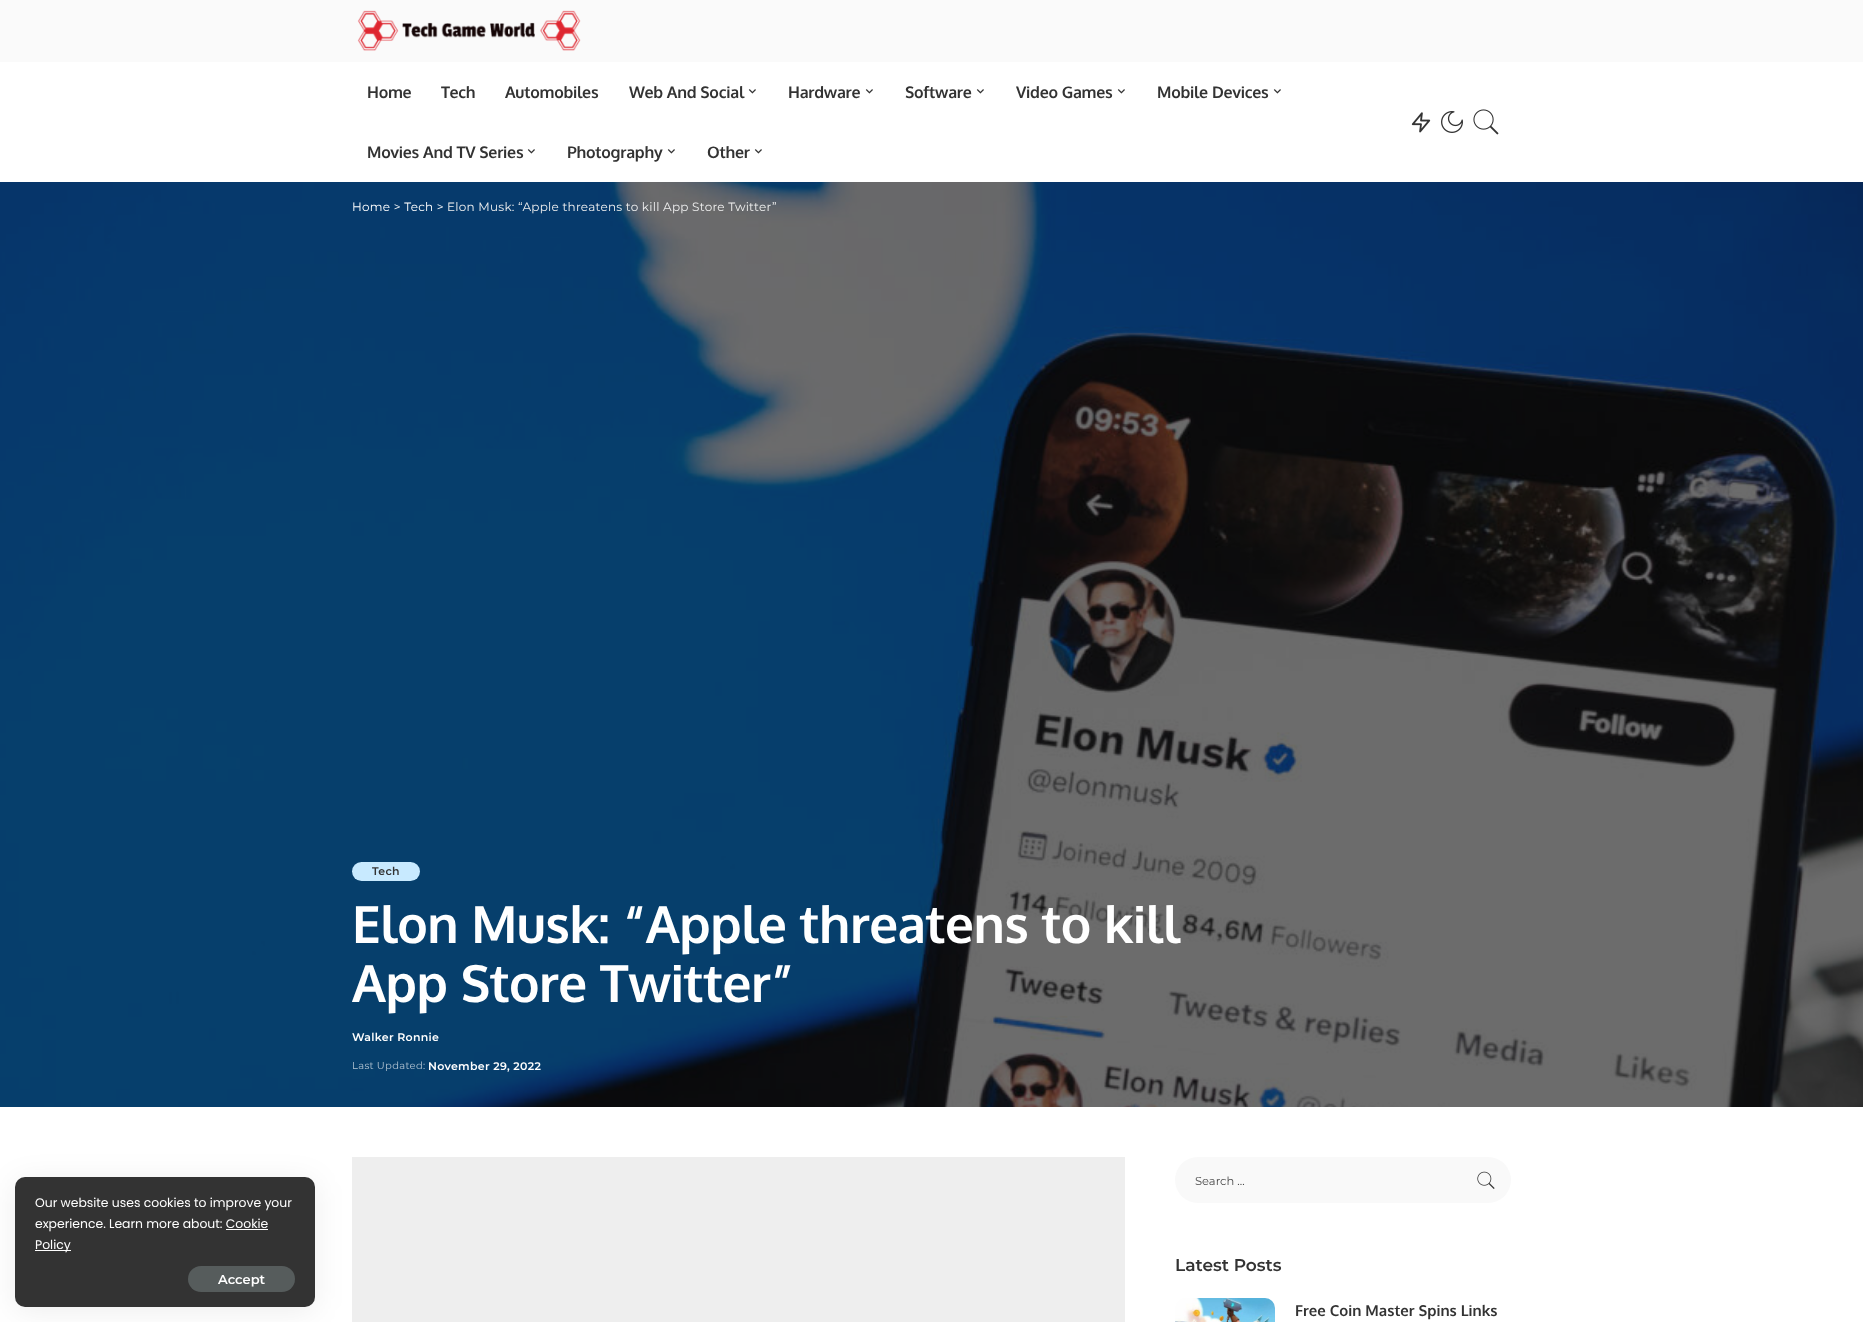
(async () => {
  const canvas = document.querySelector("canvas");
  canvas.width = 1863;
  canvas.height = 1322;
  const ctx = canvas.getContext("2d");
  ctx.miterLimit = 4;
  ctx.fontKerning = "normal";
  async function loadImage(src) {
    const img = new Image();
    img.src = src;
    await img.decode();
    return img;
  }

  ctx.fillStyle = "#ffffff";
  ctx.fillRect(0, 0, 1863, 1322);
  ctx.fillStyle = "#eeeeee";
  ctx.fillRect(352, 1157, 773, 165);
  ctx.fillStyle = "rgba(0, 0, 0, 0.07)";
  ctx.filter = "blur(15px)";
  ctx.beginPath();
  ctx.roundRect(15, 1181, 300, 130, 10);
  ctx.fill();
  ctx.filter = "none";
  ctx.fillStyle = "#333333";
  ctx.beginPath();
  ctx.roundRect(15, 1177, 300, 130, 10);
  ctx.fill();
  ctx.fillStyle = "#ffffff";
  ctx.fillRect(226, 1229, 42, 1);
  ctx.fillRect(35, 1250, 36, 1);
  ctx.fillStyle = "#565c5c";
  ctx.beginPath();
  ctx.roundRect(188, 1266, 107, 26, 13);
  ctx.fill();
  ctx.fillStyle = "#fafafa";
  ctx.fillRect(0, 0, 1863, 62);
  ctx.drawImage(await loadImage("img/1.png"), 357, 10, 224, 41);
  ctx.drawImage(await loadImage("img/2.png"), 748, 89, 8, 5);
  ctx.drawImage(await loadImage("img/2.png"), 865, 89, 8, 5);
  ctx.drawImage(await loadImage("img/2.png"), 976, 89, 8, 5);
  ctx.drawImage(await loadImage("img/2.png"), 1117, 89, 8, 5);
  ctx.drawImage(await loadImage("img/2.png"), 1273, 89, 8, 5);
  ctx.drawImage(await loadImage("img/2.png"), 527, 149, 8, 5);
  ctx.drawImage(await loadImage("img/2.png"), 667, 149, 8, 5);
  ctx.drawImage(await loadImage("img/2.png"), 754, 149, 8, 5);
  ctx.drawImage(await loadImage("img/3.png"), 1411, 112, 20, 21);
  ctx.drawImage(await loadImage("img/4.png"), 1441, 111, 22, 22);
  ctx.drawImage(await loadImage("img/5.png"), 1473, 109, 26, 26);
  ctx.fillStyle = "#0a0a0a";
  ctx.fillRect(0, 182, 1863, 925);
  ctx.drawImage(await loadImage("img/6.png"), 0, 182, 1863, 925);
  ctx.fillStyle = "#c8eaff";
  ctx.beginPath();
  ctx.roundRect(352, 862, 68, 19, 9.5);
  ctx.fill();
  ctx.fillStyle = "#f9f9f9";
  ctx.beginPath();
  ctx.roundRect(1175, 1157, 336, 46, 23);
  ctx.fill();
  ctx.drawImage(await loadImage("img/7.png"), 1477, 1171, 18, 18);
  ctx.drawImage(await loadImage("img/8.png"), 1175, 1298, 100, 24);
  ctx.font = "12.4px Poppins";
  ctx.fillStyle = "#ffffff";
  for (const [text, x, y] of [
    ["Our website uses cookies to improve your", 35, 1207],
    ["experience. Learn more about: Cookie", 35, 1228],
    ["Policy", 35, 1249],
  ]) {
    ctx.fillText(text, x, y);
  }
  ctx.font = "600 13px Montserrat";
  ctx.fillText("Accept", 218, 1284);
  ctx.letterSpacing = "-0.25px";
  ctx.font = "bold 16px Oxygen";
  ctx.fillStyle = "#333333";
  for (const [text, x, y] of [
    ["Home", 367, 98],
    ["Tech", 441, 98],
    ["Automobiles", 505, 98],
    ["Web And Social", 629, 98],
    ["Hardware", 788, 98],
    ["Software", 905, 98],
    ["Video Games", 1016, 98],
    ["Mobile Devices", 1157, 98],
    ["Movies And TV Series", 367, 158],
    ["Photography", 567, 158],
    ["Other", 707, 158],
  ]) {
    ctx.fillText(text, x, y);
  }
  ctx.letterSpacing = "0.25px";
  ctx.font = "12px Montserrat";
  ctx.fillStyle = "#ffffff";
  ctx.fillText("Home > Tech >", 352, 211);
  ctx.fillStyle = "#efefef";
  ctx.fillText("Elon Musk: “Apple threatens to kill App Store Twitter”", 447, 211);
  ctx.letterSpacing = "0.3px";
  ctx.font = "600 11px Montserrat";
  ctx.fillStyle = "#333333";
  ctx.fillText("Tech", 372, 875);
  ctx.letterSpacing = "-0.5px";
  ctx.font = "bold 51.25px Oxygen";
  ctx.fillStyle = "#ffffff";
  ctx.fillText("Elon Musk: “Apple threatens to kill", 352, 943);
  ctx.fillText("App Store Twitter”", 352, 1002);
  ctx.letterSpacing = "0.3px";
  ctx.font = "600 11px Montserrat";
  ctx.fillText("Walker Ronnie", 352, 1041);
  ctx.font = "10px Montserrat";
  ctx.fillStyle = "#b4c5d3";
  ctx.fillText("Last Updated:", 352, 1069);
  ctx.font = "600 11px Montserrat";
  ctx.fillStyle = "#ffffff";
  ctx.fillText("November 29, 2022", 428, 1070);
  ctx.letterSpacing = "0px";
  ctx.font = "11.5px Montserrat";
  ctx.fillStyle = "#4b4b4b";
  ctx.fillText("Search …", 1195, 1185);
  ctx.font = "600 17px Montserrat";
  ctx.fillStyle = "#333333";
  ctx.fillText("Latest Posts", 1175, 1271);
  ctx.font = "bold 15px Oxygen";
  ctx.fillText("Free Coin Master Spins Links", 1295, 1316);
})();
